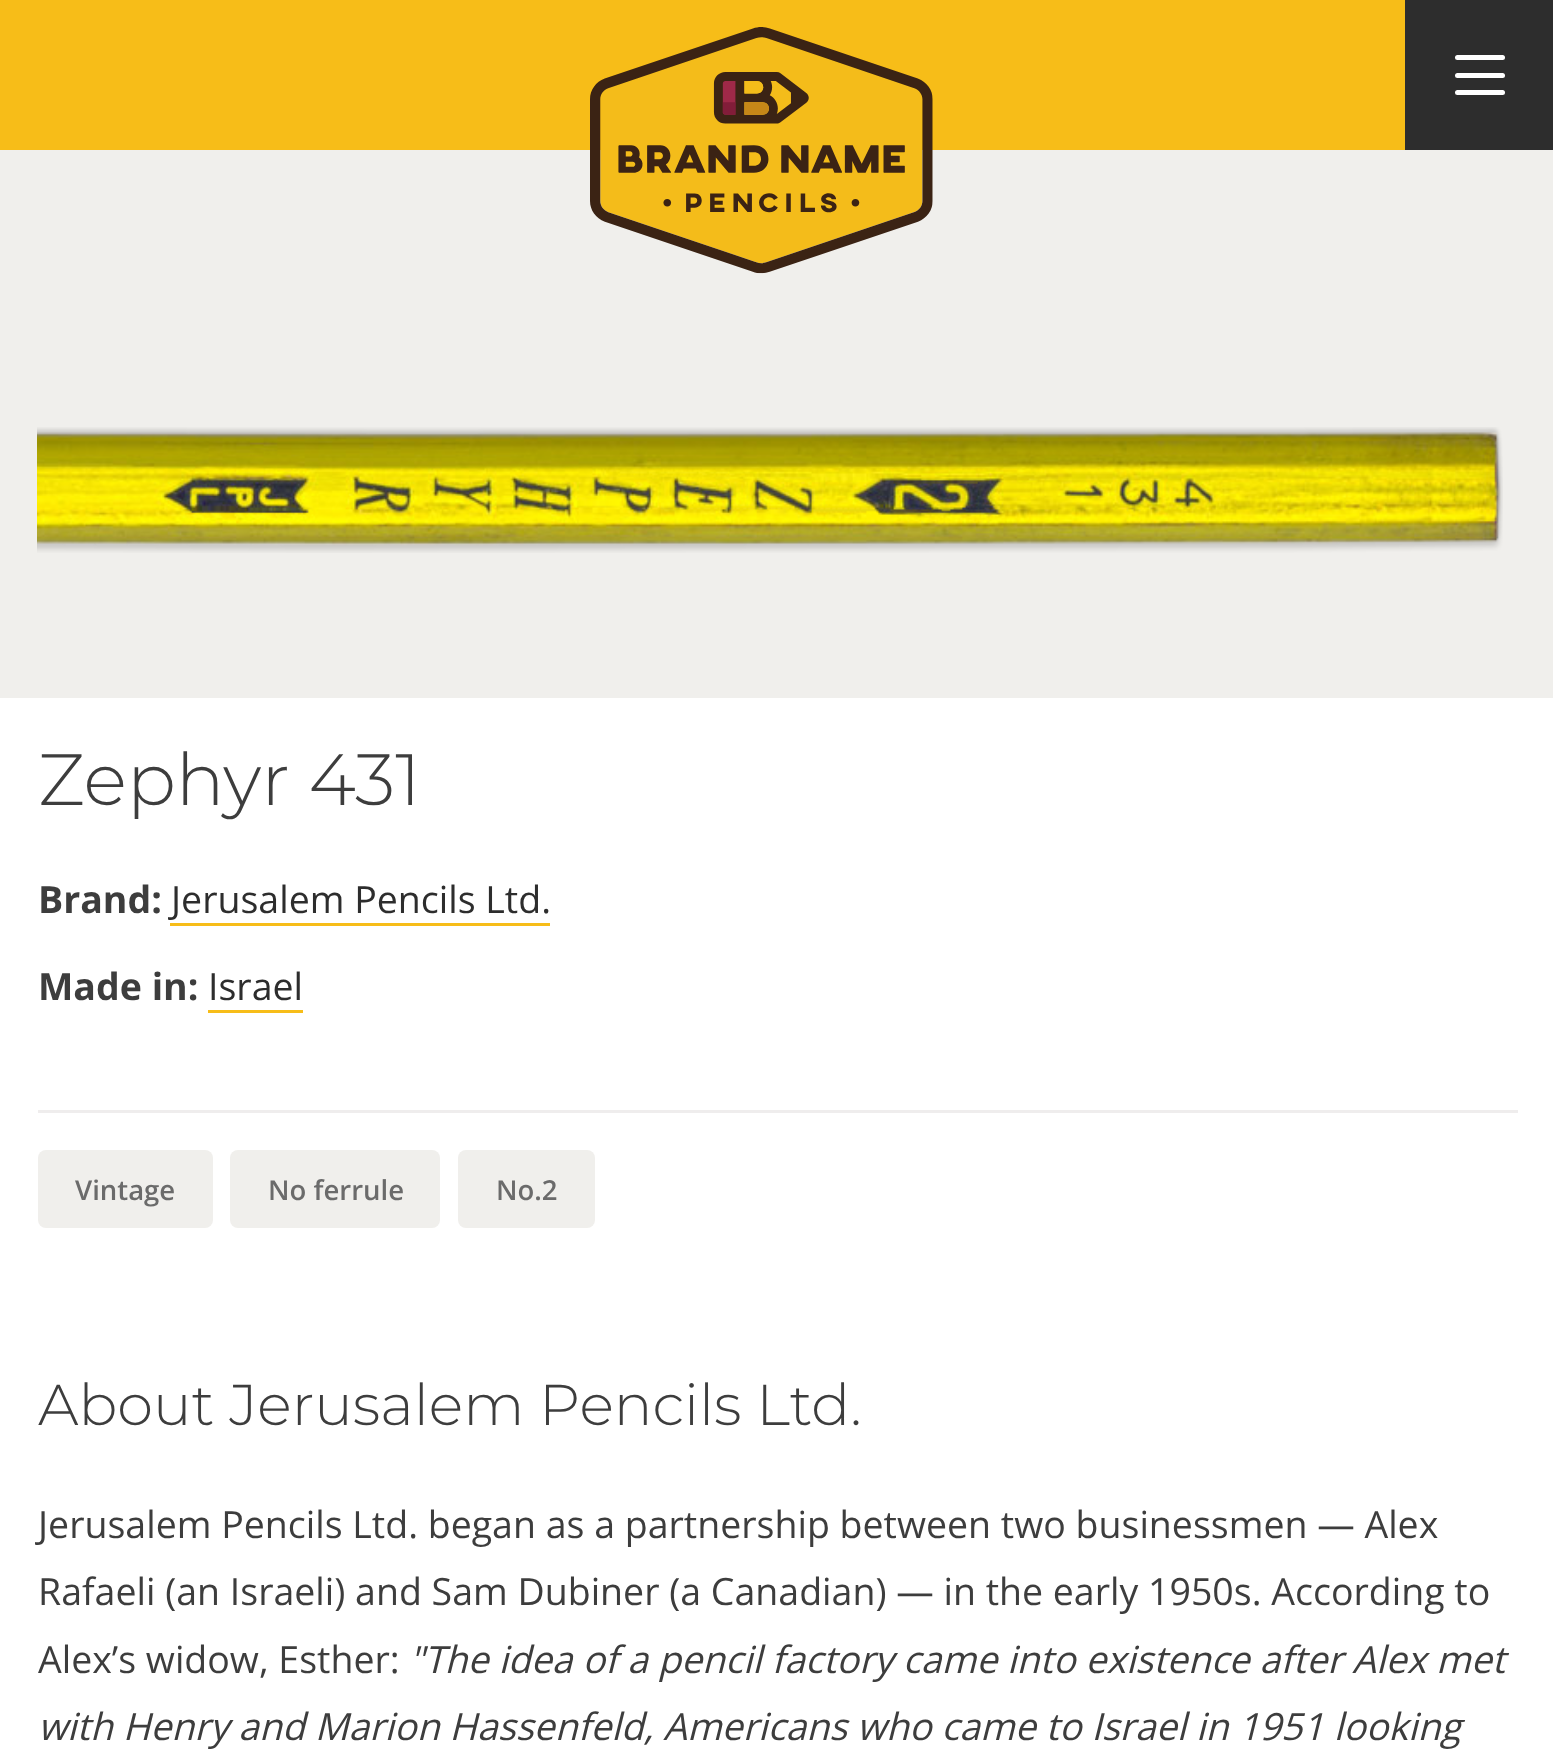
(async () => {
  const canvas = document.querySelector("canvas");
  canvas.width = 1553;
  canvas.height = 1751;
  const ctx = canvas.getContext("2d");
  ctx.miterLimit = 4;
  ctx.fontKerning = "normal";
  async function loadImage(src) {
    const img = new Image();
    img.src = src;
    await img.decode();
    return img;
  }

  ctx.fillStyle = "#ffffff";
  ctx.fillRect(0, 0, 1553, 1751);
  ctx.fillStyle = "#f7bd18";
  ctx.fillRect(0, 0, 1405, 150);
  ctx.fillStyle = "#f0efec";
  ctx.fillRect(0, 150, 1553, 548);
  ctx.drawImage(await loadImage("img/1.png"), 590, 27, 343, 247);
  ctx.fillStyle = "#2d2d2d";
  ctx.fillRect(1405, 0, 148, 150);
  ctx.fillStyle = "#ffffff";
  ctx.beginPath();
  ctx.roundRect(1455, 90, 50, 5, 2.5);
  ctx.fill();
  ctx.beginPath();
  ctx.roundRect(1455, 55, 50, 5, 2.5);
  ctx.fill();
  ctx.beginPath();
  ctx.roundRect(1455, 73, 50, 5, 2.5);
  ctx.fill();
  ctx.drawImage(await loadImage("img/2.png"), 37, 427, 1466, 126);
  for (const [x, y, w, h, color] of [
    [170, 923, 380, 3, "#f7bd18"],
    [208, 1010, 95, 3, "#f7bd18"],
    [38, 1110, 1480, 3, "#efeded"],
  ]) {
    ctx.fillStyle = color;
    ctx.fillRect(x, y, w, h);
  }
  ctx.fillStyle = "#f0efec";
  ctx.beginPath();
  ctx.roundRect(38, 1150, 175, 78, 8);
  ctx.fill();
  ctx.beginPath();
  ctx.roundRect(230, 1150, 210, 78, 8);
  ctx.fill();
  ctx.beginPath();
  ctx.roundRect(458, 1150, 137, 78, 8);
  ctx.fill();
  ctx.font = "300 72.5px Montserrat";
  ctx.fillStyle = "#3d3d3d";
  ctx.fillText("Zephyr 431", 38, 805);
  ctx.font = "bold 37.5px Open Sans";
  ctx.fillText("Brand:", 38, 913);
  ctx.font = "37.5px Open Sans";
  ctx.fillStyle = "#2d2d2d";
  ctx.fillText("Jerusalem Pencils Ltd.", 171, 913);
  ctx.font = "bold 37.5px Open Sans";
  ctx.fillStyle = "#3d3d3d";
  ctx.fillText("Made in:", 38, 1000);
  ctx.font = "37.5px Open Sans";
  ctx.fillStyle = "#2d2d2d";
  ctx.fillText("Israel", 208, 1000);
  ctx.font = "600 27.5px Open Sans";
  ctx.fillStyle = "#6b6b6b";
  for (const [text, x, y] of [
    ["Vintage", 75, 1200],
    ["No ferrule", 268, 1200],
    ["No.2", 496, 1200],
  ]) {
    ctx.fillText(text, x, y);
  }
  ctx.font = "300 57.5px Montserrat";
  ctx.fillStyle = "#3d3d3d";
  ctx.fillText("About Jerusalem Pencils Ltd.", 38, 1425);
  ctx.font = "37.5px Open Sans";
  for (const [text, x, y] of [
    ["Jerusalem Pencils Ltd. began as a partnership between two businessmen — Alex", 38, 1538],
    ["Rafaeli (an Israeli) and Sam Dubiner (a Canadian) — in the early 1950s. According to", 38, 1605],
    ["Alex’s widow, Esther:", 38, 1673],
  ]) {
    ctx.fillText(text, x, y);
  }
  ctx.font = "italic 37.5px Open Sans";
  ctx.fillText("\"The idea of a pencil factory came into existence after Alex met", 409, 1673);
  ctx.fillText("with Henry and Marion Hassenfeld, Americans who came to Israel in 1951 looking", 38, 1740);
})();
